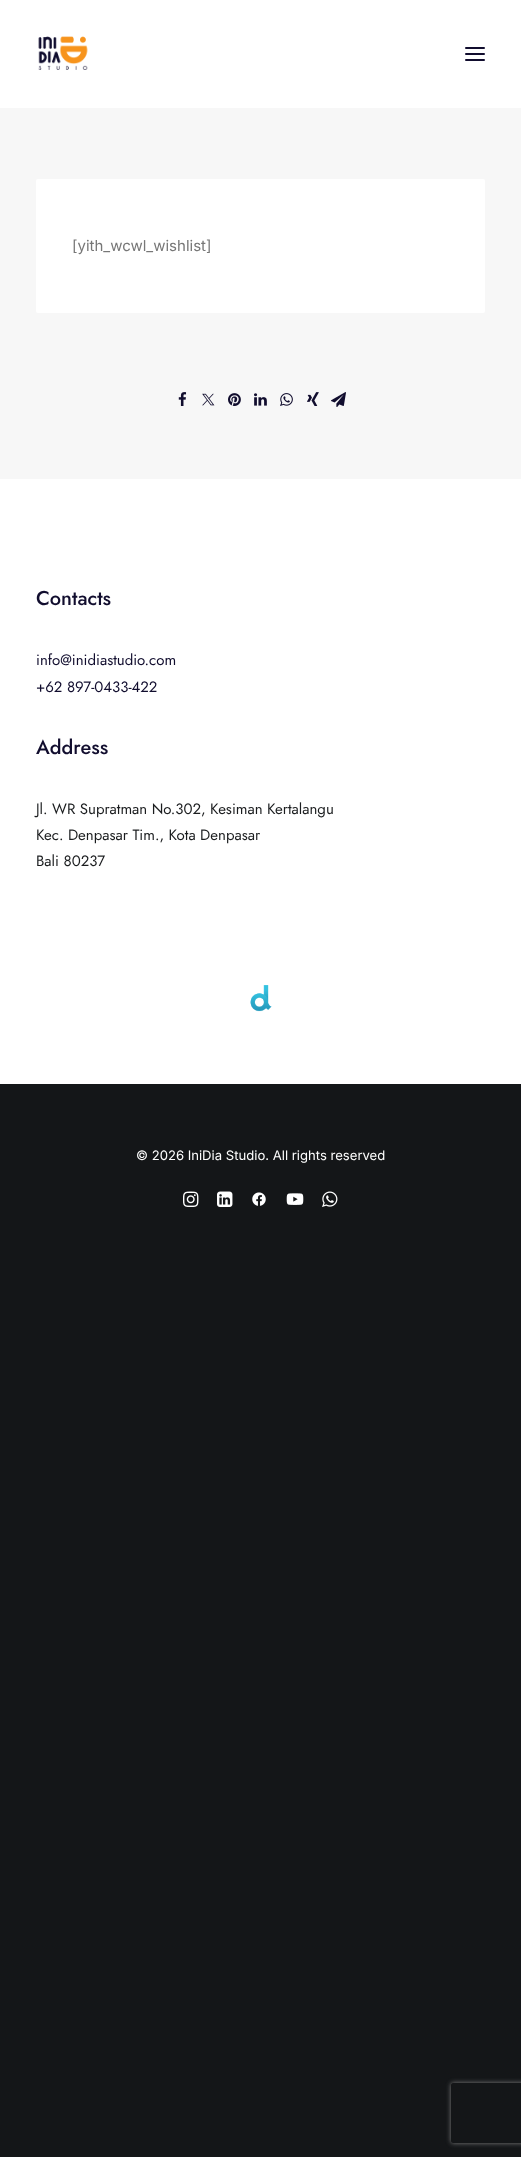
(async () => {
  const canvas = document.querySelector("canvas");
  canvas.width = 521;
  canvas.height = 2157;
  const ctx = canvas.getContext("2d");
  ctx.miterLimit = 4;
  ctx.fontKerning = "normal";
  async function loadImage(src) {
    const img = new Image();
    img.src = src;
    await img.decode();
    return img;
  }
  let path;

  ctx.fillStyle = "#141618";
  ctx.fillRect(0, 0, 521, 2157);
  ctx.fillStyle = "#ffffff";
  ctx.fillRect(0, 0, 521, 108);
  ctx.drawImage(await loadImage("img/1.png"), 38, 36, 50, 34);
  ctx.fillStyle = "#110d2e";
  ctx.beginPath();
  ctx.roundRect(465, 53, 20, 2, 1);
  ctx.fill();
  ctx.beginPath();
  ctx.roundRect(465, 47, 20, 2, 1);
  ctx.fill();
  ctx.beginPath();
  ctx.roundRect(465, 59, 20, 2, 1);
  ctx.fill();
  ctx.fillStyle = "#f7f7f7";
  ctx.fillRect(0, 108, 521, 371);
  ctx.fillStyle = "#ffffff";
  ctx.beginPath();
  ctx.roundRect(36, 179, 449, 134, 2);
  ctx.fill();
  ctx.drawImage(await loadImage("img/2.png"), 178, 392, 9, 14);
  ctx.drawImage(await loadImage("img/3.png"), 202, 393, 13, 13);
  ctx.drawImage(await loadImage("img/4.png"), 228, 393, 13, 13);
  ctx.drawImage(await loadImage("img/5.png"), 254, 393, 13, 13);
  ctx.drawImage(await loadImage("img/6.png"), 280, 393, 13, 13);
  ctx.drawImage(await loadImage("img/7.png"), 307, 392, 12, 14);
  ctx.drawImage(await loadImage("img/8.png"), 331, 392, 15, 15);
  ctx.fillRect(0, 479, 521, 605);
  ctx.drawImage(await loadImage("img/9.png"), 250, 985, 22, 27);
  ctx.drawImage(await loadImage("img/10.png"), 183, 1191, 16, 16);
  ctx.drawImage(await loadImage("img/11.png"), 217, 1191, 16, 16);
  ctx.drawImage(await loadImage("img/12.png"), 252, 1192, 14, 14);
  ctx.drawImage(await loadImage("img/13.png"), 286, 1193, 18, 12);
  ctx.drawImage(await loadImage("img/14.png"), 322, 1191, 16, 16);
  ctx.save();
  path = new Path2D("M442 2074H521V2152H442ZM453 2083H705C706 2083 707 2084 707 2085V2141C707 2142 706 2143 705 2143H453C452 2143 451 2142 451 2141V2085C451 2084 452 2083 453 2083Z");
  ctx.clip(path, "evenodd");
  ctx.fillStyle = "#808080";
  ctx.filter = "blur(2.5px)";
  ctx.beginPath();
  ctx.roundRect(451, 2083, 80, 60, 2);
  ctx.fill();
  ctx.filter = "none";
  ctx.restore();
  ctx.font = "15px Inter";
  ctx.fillStyle = "#777777";
  ctx.fillText("[yith_wcwl_wishlist]", 72, 251);
  ctx.font = "500 20px Jost";
  ctx.fillStyle = "#110d2e";
  ctx.fillText("Contacts", 36, 605);
  ctx.font = "15px Jost";
  ctx.fillText("info@inidiastudio.com", 36, 665);
  ctx.fillText("+62 897-0433-422", 36, 692);
  ctx.font = "500 20px Jost";
  ctx.fillText("Address", 36, 754);
  ctx.font = "15px Jost";
  ctx.fillStyle = "#1b1d1f";
  for (const [text, x, y] of [
    ["Jl. WR Supratman No.302, Kesiman Kertalangu", 36, 814],
    ["Kec. Denpasar Tim., Kota Denpasar", 36, 840],
    ["Bali 80237", 36, 866],
  ]) {
    ctx.fillText(text, x, y);
  }
  ctx.font = "13.1px Inter";
  ctx.fillStyle = "#ffffff";
  ctx.fillText("© 2026 IniDia Studio. All rights reserved", 136, 1160);
})();
